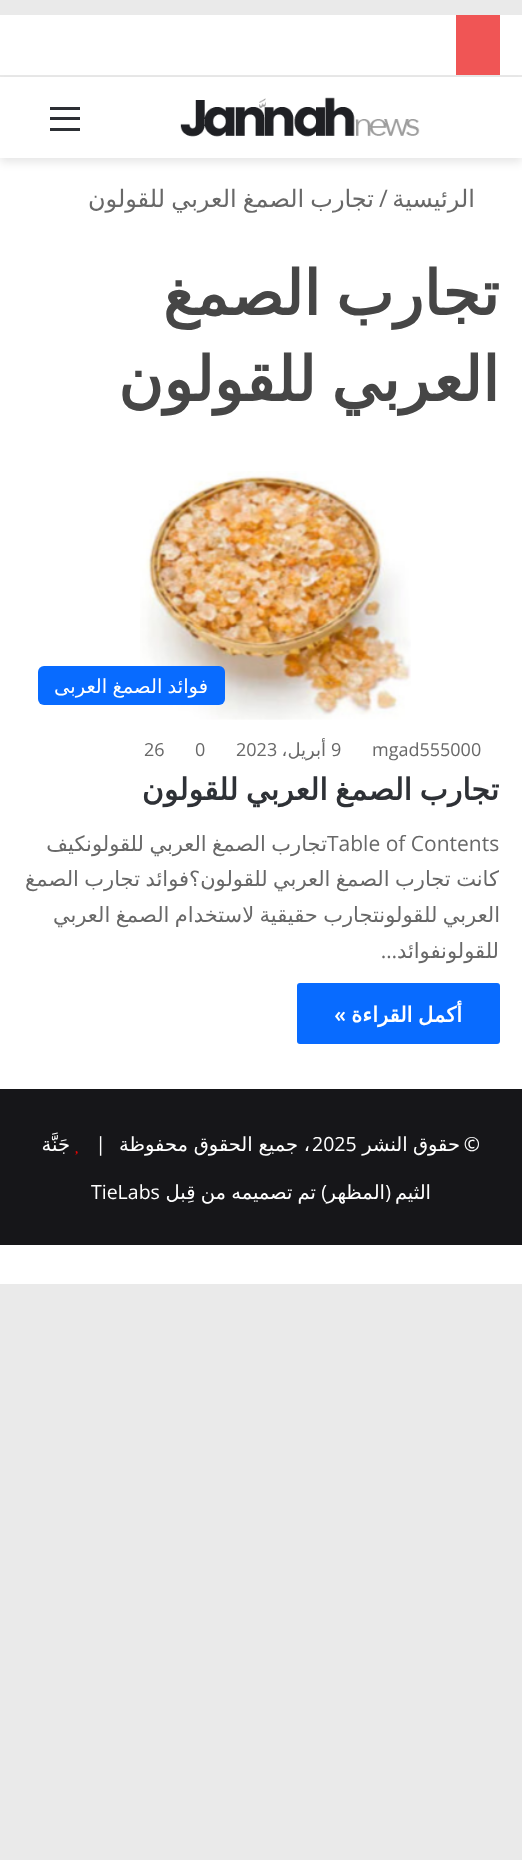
(async () => {
  const canvas = document.querySelector("canvas");
  canvas.width = 522;
  canvas.height = 1860;
  const ctx = canvas.getContext("2d");
  ctx.miterLimit = 4;
  ctx.fontKerning = "normal";
  async function loadImage(src) {
    const img = new Image();
    img.src = src;
    await img.decode();
    return img;
  }

  ctx.fillStyle = "#eaeaea";
  ctx.fillRect(0, 0, 522, 1860);
  ctx.fillStyle = "#ffffff";
  ctx.fillRect(0, 158, 522, 1126);
  ctx.fillStyle = "rgba(0, 0, 0, 0.1)";
  ctx.filter = "blur(5px)";
  ctx.beginPath();
  ctx.rect(0, 81, 522, 81);
  ctx.fill();
  ctx.filter = "none";
  for (const [x, y, w, h, color] of [
    [0, 15, 522, 60, "#ffffff"],
    [456, 15, 44, 60, "#f05555"],
    [0, 77, 522, 81, "#ffffff"],
  ]) {
    ctx.fillStyle = color;
    ctx.fillRect(x, y, w, h);
  }
  ctx.drawImage(await loadImage("img/1.png"), 180, 97, 240, 40);
  for (const [x, y, w, h, color] of [
    [50, 117, 30, 3, "#2c2f34"],
    [50, 107, 30, 3, "#2c2f34"],
    [50, 128, 30, 3, "#2c2f34"],
  ]) {
    ctx.fillStyle = color;
    ctx.fillRect(x, y, w, h);
  }
  ctx.drawImage(await loadImage("img/2.png"), 140, 471, 271, 249);
  ctx.fillStyle = "#086bff";
  ctx.beginPath();
  ctx.roundRect(38, 666, 187, 39, 6);
  ctx.fill();
  ctx.beginPath();
  ctx.roundRect(297, 983, 203, 61, 3);
  ctx.fill();
  ctx.fillStyle = "#161619";
  ctx.fillRect(0, 1089, 522, 156);
  ctx.drawImage(await loadImage("img/3.png"), 75, 1151, 3, 4);
  ctx.direction = "rtl";
  ctx.font = "24px DejaVu Sans";
  ctx.fillStyle = "#686868";
  ctx.fillText("الرئيسية", 475, 207);
  ctx.direction = "ltr";
  ctx.font = "24px Open Sans";
  ctx.fillText("/", 379, 207);
  ctx.wordSpacing = "-1.5px";
  ctx.direction = "rtl";
  ctx.font = "24px DejaVu Sans";
  ctx.fillText("تجارب الصمغ العربي للقولون", 374, 207);
  ctx.wordSpacing = "-4px";
  ctx.font = "bold 61.5px DejaVu Sans";
  ctx.fillStyle = "#464646";
  ctx.fillText("تجارب الصمغ", 499, 315);
  ctx.fillText("العربي للقولون", 499, 401);
  ctx.wordSpacing = "-1px";
  ctx.font = "19.5px DejaVu Sans";
  ctx.fillStyle = "#ffffff";
  ctx.fillText("فوائد الصمغ العربى", 208, 693);
  ctx.wordSpacing = "0px";
  ctx.direction = "ltr";
  ctx.font = "18px Open Sans";
  ctx.fillStyle = "#686868";
  ctx.fillText("mgad555000", 372, 756);
  ctx.fillText("9", 331, 756);
  ctx.direction = "rtl";
  ctx.font = "18px DejaVu Sans";
  ctx.fillText("أبريل،", 326, 756);
  ctx.direction = "ltr";
  ctx.font = "18px Open Sans";
  for (const [text, x, y] of [
    ["2023", 236, 756],
    ["0", 195, 756],
    ["26", 144, 756],
  ]) {
    ctx.fillText(text, x, y);
  }
  ctx.wordSpacing = "-2px";
  ctx.direction = "rtl";
  ctx.font = "bold 30px DejaVu Sans";
  ctx.fillStyle = "#2e3136";
  ctx.fillText("تجارب الصمغ العربي للقولون", 499, 800);
  ctx.wordSpacing = "-1.25px";
  ctx.font = "21px DejaVu Sans";
  ctx.fillStyle = "#686868";
  ctx.fillText("تجارب الصمغ العربي للقولونكيف", 327, 851);
  ctx.wordSpacing = "0px";
  ctx.direction = "ltr";
  ctx.font = "21px Open Sans";
  ctx.fillText("Table of Contents", 327, 851);
  ctx.wordSpacing = "-1.25px";
  ctx.direction = "rtl";
  ctx.font = "21px DejaVu Sans";
  ctx.fillText("كانت تجارب الصمغ العربي للقولون؟فوائد تجارب الصمغ", 499, 886);
  ctx.fillText("العربي للقولونتجارب حقيقية لاستخدام الصمغ العربي", 500, 922);
  ctx.wordSpacing = "0px";
  ctx.fillText("للقولونفوائد", 499, 958);
  ctx.font = "21px Open Sans";
  ctx.fillText("…", 397, 958);
  ctx.wordSpacing = "-1px";
  ctx.font = "bold 21px DejaVu Sans";
  ctx.fillStyle = "#ffffff";
  ctx.fillText("أكمل القراءة", 462, 1022);
  ctx.wordSpacing = "0px";
  ctx.font = "600 21px Open Sans";
  ctx.fillText("»", 346, 1022);
  ctx.font = "19.5px Open Sans";
  ctx.fillText("©", 480, 1151);
  ctx.wordSpacing = "-1px";
  ctx.font = "19.5px DejaVu Sans";
  ctx.fillText("حقوق النشر", 460, 1151);
  ctx.wordSpacing = "0px";
  ctx.direction = "ltr";
  ctx.font = "19.5px Open Sans";
  ctx.fillText("2025", 312, 1151);
  ctx.wordSpacing = "-0.5px";
  ctx.direction = "rtl";
  ctx.font = "19.5px DejaVu Sans";
  ctx.fillText("، جميع الحقوق محفوظة", 310, 1151);
  ctx.wordSpacing = "0px";
  ctx.font = "19.5px Open Sans";
  ctx.fillText("|", 106, 1151);
  ctx.font = "19.5px DejaVu Sans";
  ctx.fillText("جَنَّة", 70, 1151);
  ctx.fillText("الثيم", 431, 1199);
  ctx.font = "19.5px Open Sans";
  ctx.fillText("(", 391, 1199);
  ctx.fillText(")", 327, 1199);
  ctx.font = "19.5px DejaVu Sans";
  ctx.fillText("المظهر", 385, 1199);
  ctx.wordSpacing = "-1px";
  ctx.fillText("تم تصميمه من قِبل", 316, 1199);
  ctx.wordSpacing = "0px";
  ctx.direction = "ltr";
  ctx.font = "19.5px Open Sans";
  ctx.fillText("TieLabs", 91, 1199);
})();
